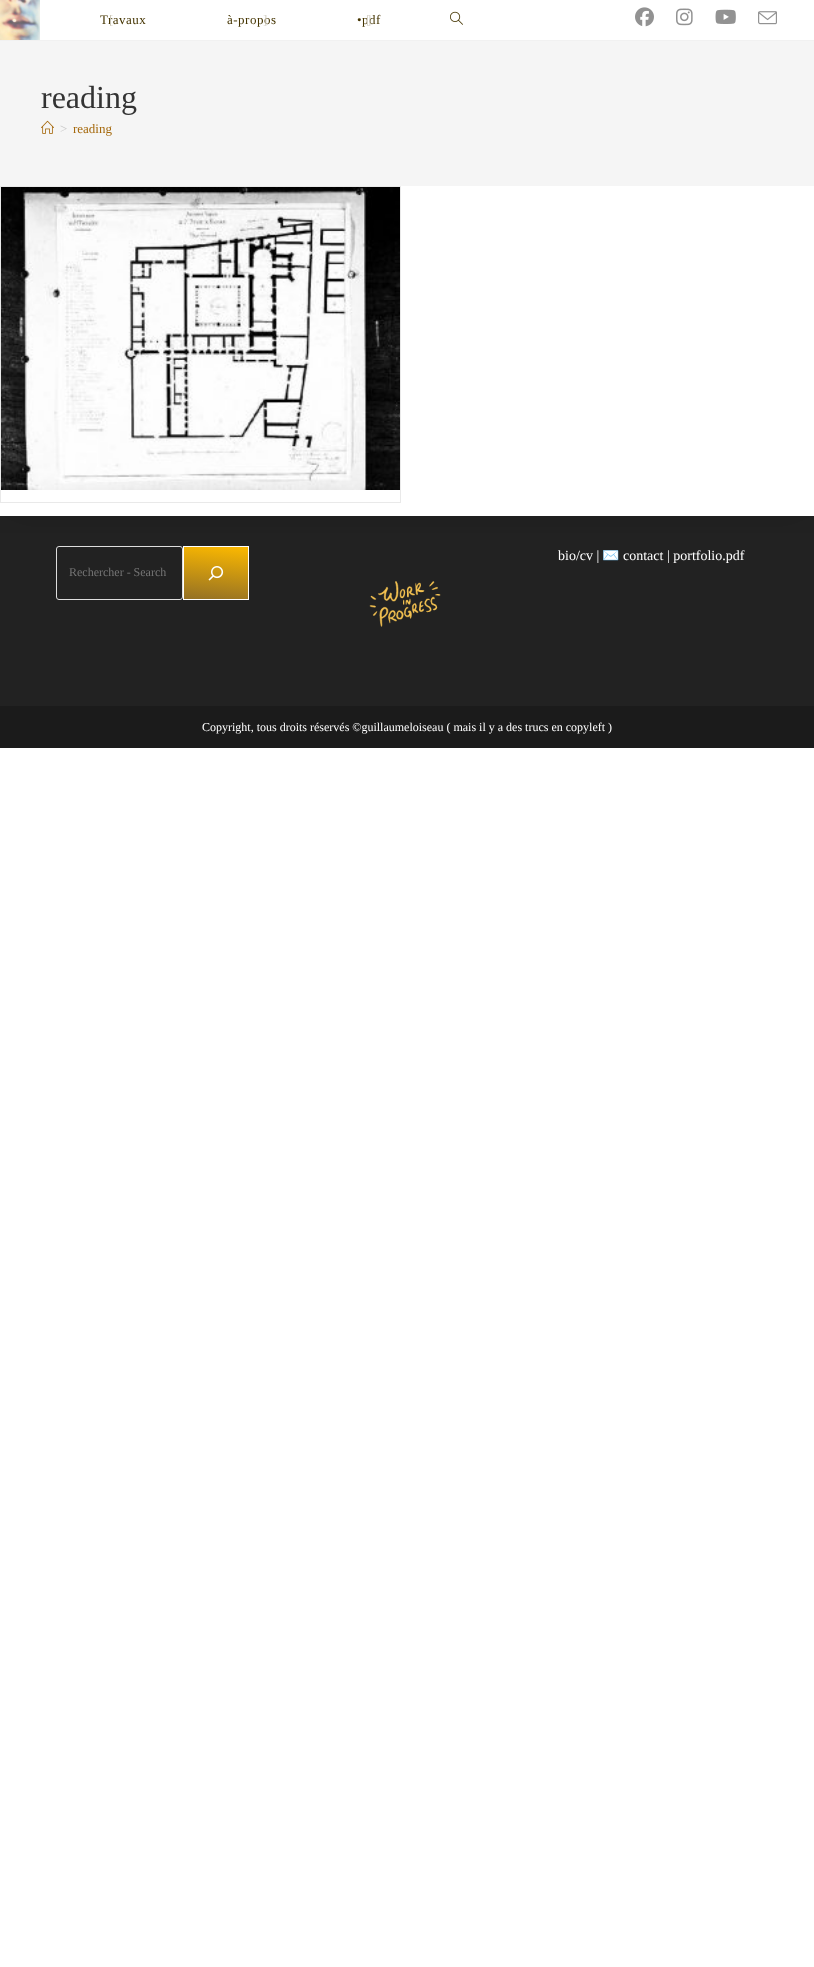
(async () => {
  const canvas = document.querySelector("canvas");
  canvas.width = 814;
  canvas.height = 1967;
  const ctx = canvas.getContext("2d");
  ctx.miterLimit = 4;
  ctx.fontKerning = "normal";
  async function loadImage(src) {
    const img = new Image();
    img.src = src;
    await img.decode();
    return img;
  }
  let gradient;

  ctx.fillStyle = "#ffffff";
  ctx.fillRect(0, 0, 814, 1967);
  ctx.fillStyle = "#222222";
  ctx.fillRect(0, 516, 814, 190);
  ctx.beginPath();
  ctx.roundRect(56.5, 546.5, 126, 53, 2.5);
  ctx.strokeStyle = "#dddddd";
  ctx.stroke();
  gradient = ctx.createLinearGradient(219, 544, 213, 602);
  gradient.addColorStop(0, "#fcb900");
  gradient.addColorStop(0.99, "#957124");
  ctx.fillStyle = gradient;
  ctx.fillRect(184, 547, 64, 52);
  ctx.strokeStyle = "#ffffff";
  ctx.strokeRect(183.5, 546.5, 65, 53);
  ctx.drawImage(await loadImage("img/9.png"), 208, 566, 16, 15);
  ctx.save();
  ctx.beginPath();
  ctx.rect(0, 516, 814, 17);
  ctx.clip();
  ctx.fillStyle = "rgba(0, 0, 0, 0.1)";
  ctx.filter = "blur(20px)";
  ctx.beginPath();
  ctx.rect(0, 41, 814, 475);
  ctx.fill();
  ctx.filter = "none";
  ctx.restore();
  ctx.fillStyle = "#ffffff";
  ctx.fillRect(0, 15, 814, 25);
  ctx.fillStyle = "#f1f1f1";
  ctx.fillRect(0, 40, 814, 1);
  ctx.drawImage(await loadImage("img/1.png"), 0, 0, 40, 40);
  ctx.drawImage(await loadImage("img/2.png"), 450, 11, 13, 14);
  ctx.drawImage(await loadImage("img/3.png"), 635, 7, 19, 20);
  ctx.drawImage(await loadImage("img/4.png"), 676, 8, 17, 18);
  ctx.drawImage(await loadImage("img/5.png"), 715, 9, 21, 15);
  ctx.drawImage(await loadImage("img/6.png"), 758, 11, 19, 14);
  ctx.fillStyle = "#f5f5f5";
  ctx.fillRect(0, 41, 814, 145);
  ctx.drawImage(await loadImage("img/7.png"), 41, 120, 13, 14);
  ctx.strokeStyle = "#e9e9e9";
  ctx.strokeRect(0.5, 186.5, 400, 316);
  ctx.drawImage(await loadImage("img/8.png"), 1, 187, 399, 303);
  ctx.drawImage(await loadImage("img/10.png"), 369, 581, 72, 46);
  ctx.fillStyle = "#1b1b1b";
  ctx.fillRect(0, 706, 814, 42);
  ctx.letterSpacing = "0.5px";
  ctx.font = "13px Liberation Serif";
  ctx.fillStyle = "#443400";
  ctx.fillText("Travaux", 100, 24);
  ctx.fillStyle = "#ccc8b9";
  ctx.fillText("[", 109, 24);
  ctx.fillStyle = "#443400";
  ctx.fillText("à-propos", 227, 24);
  ctx.fillStyle = "#d3cfc3";
  ctx.fillText("]", 263, 24);
  ctx.fillStyle = "#443400";
  ctx.fillText("•pdf", 357, 24);
  ctx.fillStyle = "#dbd7cd";
  ctx.fillText("[", 366, 24);
  ctx.fillText("]", 367, 24);
  ctx.letterSpacing = "0px";
  ctx.font = "32px Liberation Serif";
  ctx.fillStyle = "#333333";
  ctx.fillText("reading", 41, 108);
  ctx.font = "13px Liberation Serif";
  ctx.fillStyle = "#c6c6c6";
  ctx.fillText(">", 60, 133);
  ctx.fillStyle = "#a5680b";
  ctx.fillText("reading", 73, 133);
  ctx.font = "14px Liberation Serif";
  ctx.fillStyle = "#ffffff";
  ctx.fillText("bio/cv |", 558, 560);
  ctx.font = "14px Noto Color Emoji";
  ctx.fillText("✉️", 602, 560);
  ctx.font = "14px Liberation Serif";
  ctx.fillText("contact | portfolio.pdf", 623, 560);
  ctx.font = "12px Liberation Serif";
  ctx.fillStyle = "#757575";
  ctx.fillText("Rechercher - Search", 69, 576);
  ctx.fillStyle = "#ffffff";
  ctx.fillText("Copyright, tous droits réservés ©guillaumeloiseau ( mais il y a des trucs en copyleft )", 202, 731);
})();
